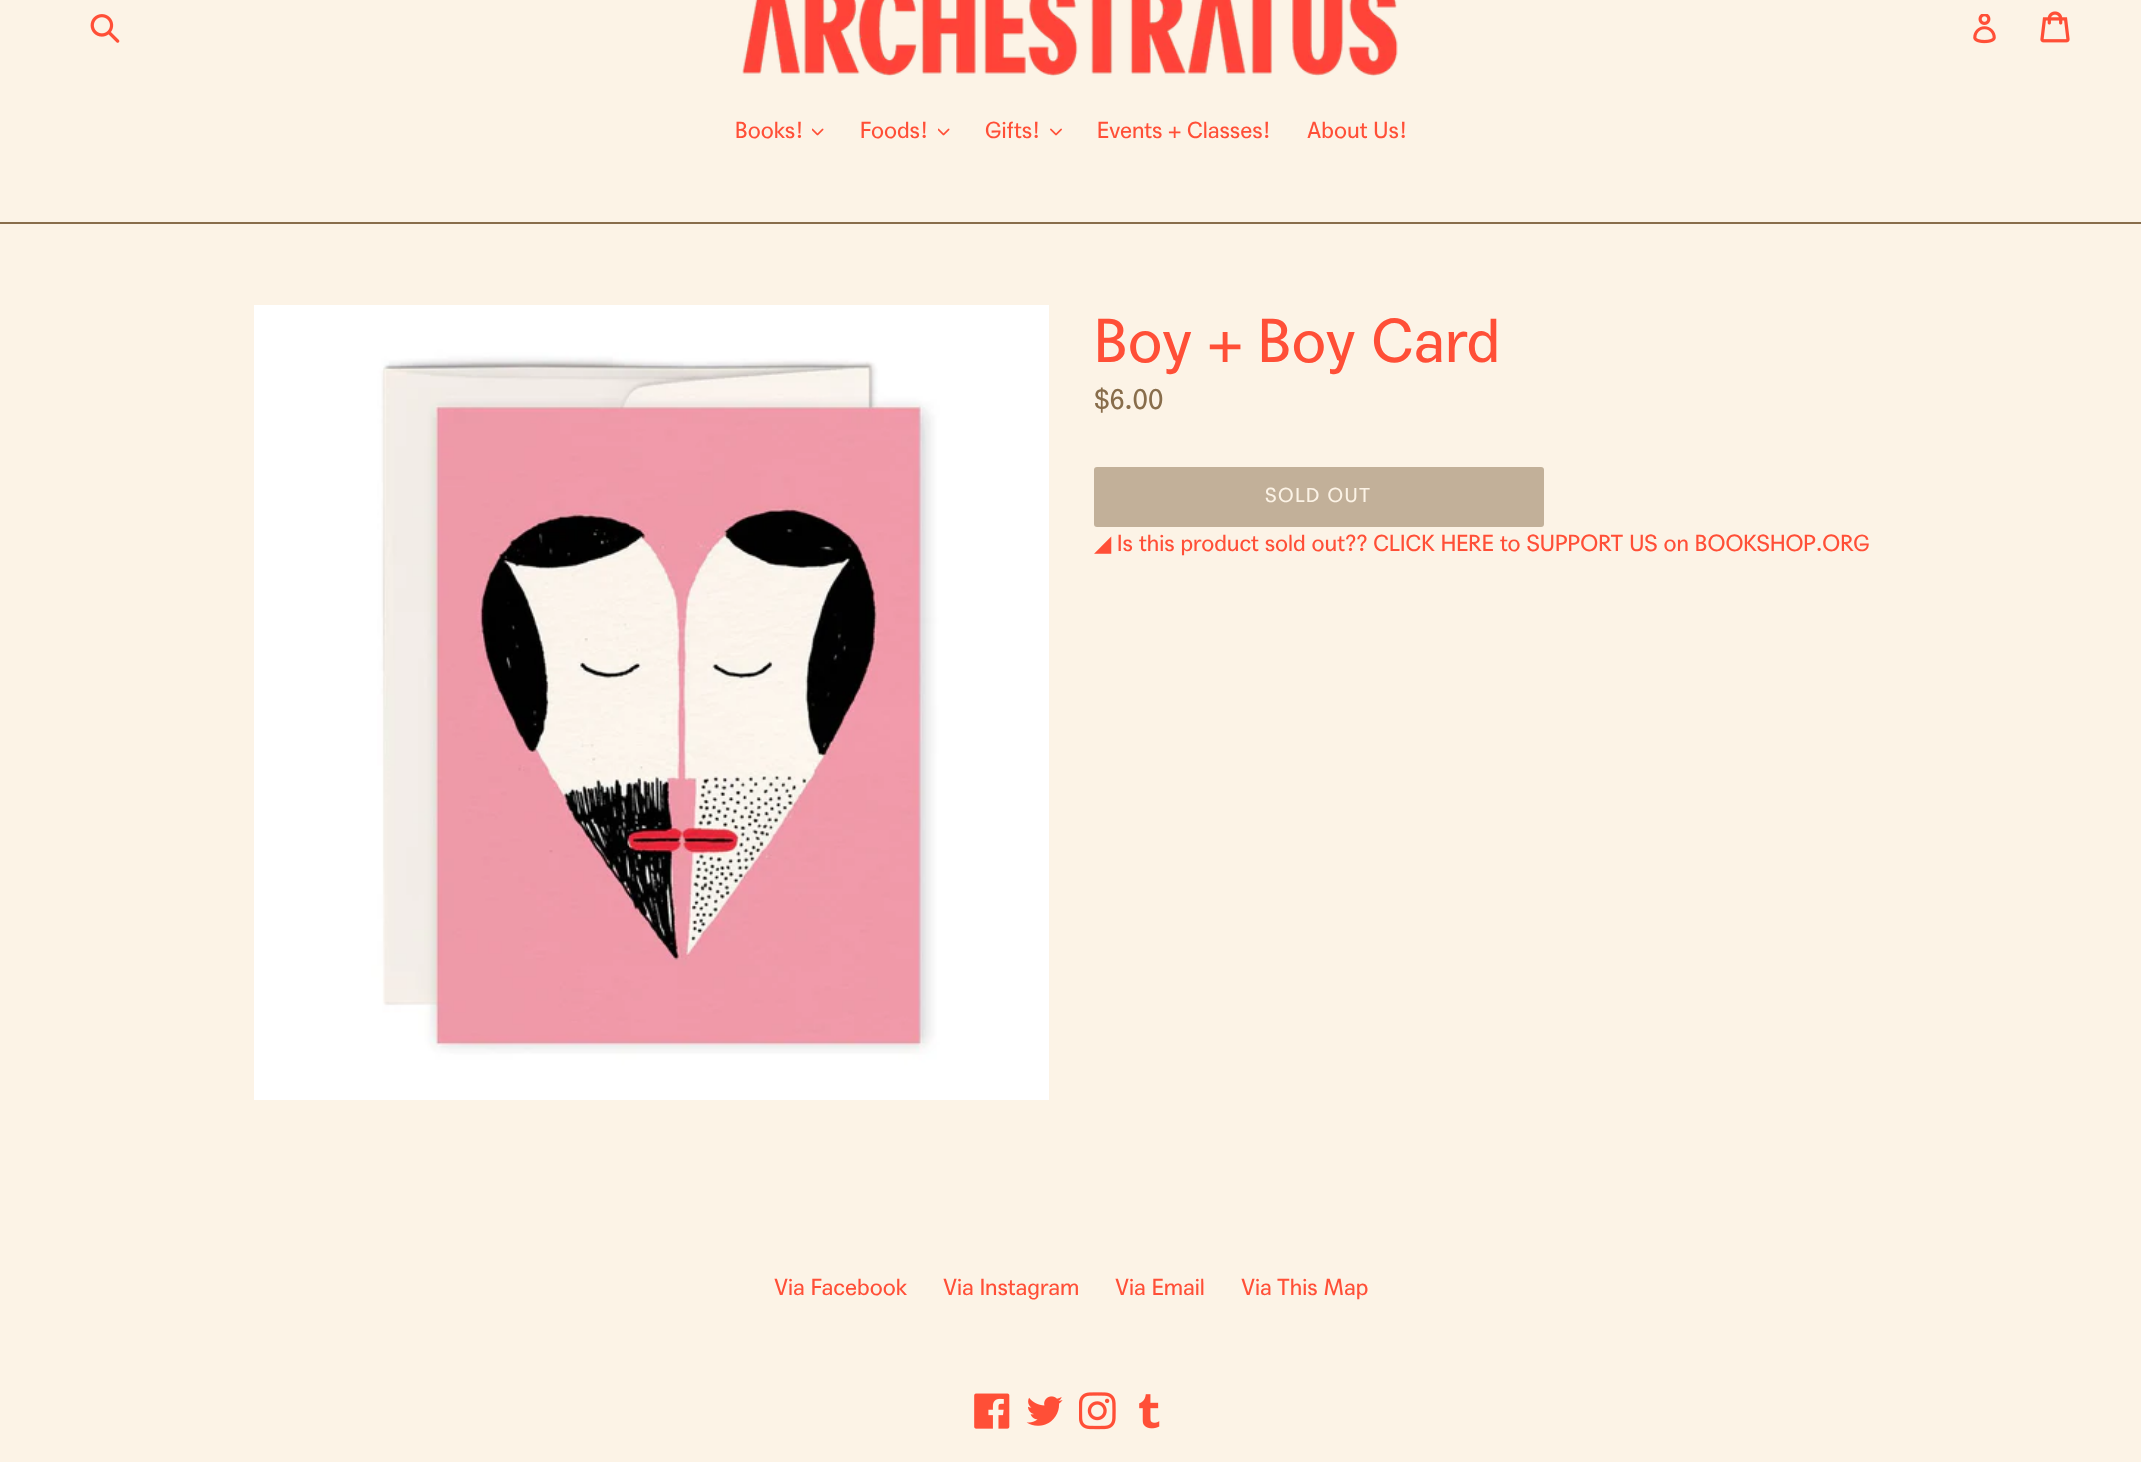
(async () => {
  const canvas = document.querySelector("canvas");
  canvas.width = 2141;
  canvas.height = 1462;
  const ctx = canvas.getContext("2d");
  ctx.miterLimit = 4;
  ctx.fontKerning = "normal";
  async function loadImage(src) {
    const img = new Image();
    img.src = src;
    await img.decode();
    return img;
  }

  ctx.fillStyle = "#fcf3e6";
  ctx.fillRect(0, 0, 2141, 1462);
  ctx.drawImage(await loadImage("img/1.png"), 90, 14, 30, 29);
  ctx.drawImage(await loadImage("img/2.png"), 742, 0, 656, 76);
  ctx.drawImage(await loadImage("img/3.png"), 1973, 14, 23, 30);
  ctx.drawImage(await loadImage("img/4.png"), 2040, 11, 30, 32);
  ctx.fillStyle = "#886d4b";
  ctx.fillRect(0, 222, 2141, 2);
  ctx.drawImage(await loadImage("img/5.png"), 812, 128, 12, 8);
  ctx.drawImage(await loadImage("img/5.png"), 938, 128, 12, 8);
  ctx.drawImage(await loadImage("img/6.png"), 1050, 128, 12, 8);
  ctx.drawImage(await loadImage("img/7.png"), 254, 305, 795, 795);
  ctx.fillStyle = "#c2b099";
  ctx.beginPath();
  ctx.roundRect(1094, 467, 450, 60, 3);
  ctx.fill();
  ctx.drawImage(await loadImage("img/8.png"), 974, 1393, 36, 36);
  ctx.drawImage(await loadImage("img/9.png"), 1026, 1396, 37, 30);
  ctx.drawImage(await loadImage("img/10.png"), 1079, 1392, 37, 38);
  ctx.drawImage(await loadImage("img/11.png"), 1139, 1394, 21, 35);
  ctx.font = "22.5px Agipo";
  ctx.fillStyle = "#ff4f37";
  for (const [text, x, y] of [
    ["Books!", 735, 138],
    ["Foods!", 860, 138],
    ["Gifts!", 985, 138],
    ["Events + Classes!", 1097, 138],
    ["About Us!", 1307, 138],
  ]) {
    ctx.fillText(text, x, y);
  }
  ctx.font = "60px Agipo";
  ctx.fillText("Boy + Boy Card", 1094, 362);
  ctx.font = "28.5px Agipo";
  ctx.fillStyle = "#886d4b";
  ctx.fillText("$6.00", 1094, 409);
  ctx.letterSpacing = "1.5px";
  ctx.font = "19.5px Agipo";
  ctx.fillStyle = "#fcf3e6";
  ctx.fillText("SOLD OUT", 1265, 502);
  ctx.letterSpacing = "0px";
  ctx.font = "22.5px DejaVu Sans";
  ctx.fillStyle = "#ff4f37";
  ctx.fillText("◢", 1094, 551);
  ctx.font = "22.5px Agipo";
  for (const [text, x, y] of [
    ["Is this product sold out?? CLICK HERE to SUPPORT US on BOOKSHOP.ORG", 1117, 551],
    ["Via Facebook", 774, 1295],
    ["Via Instagram", 943, 1295],
    ["Via Email", 1115, 1295],
    ["Via This Map", 1241, 1295],
  ]) {
    ctx.fillText(text, x, y);
  }
})();
